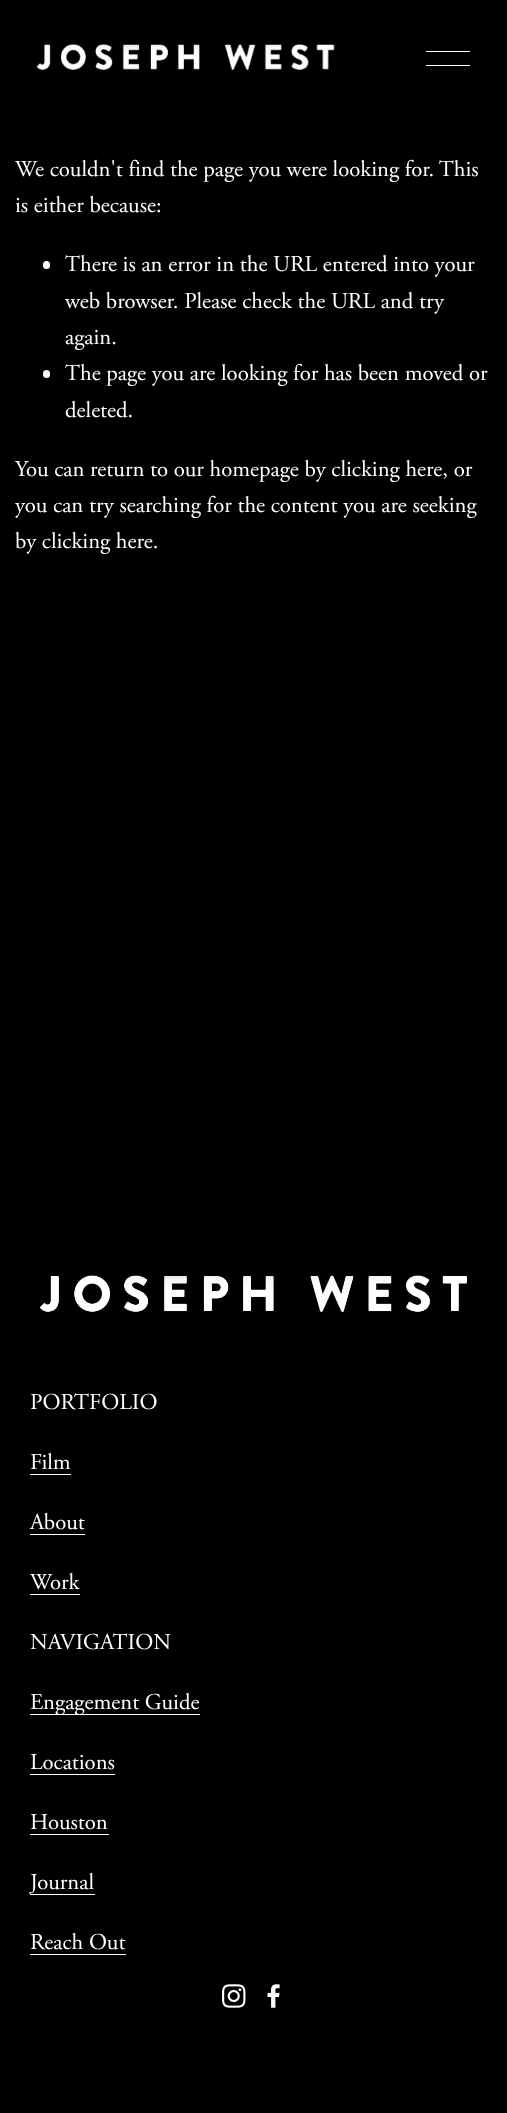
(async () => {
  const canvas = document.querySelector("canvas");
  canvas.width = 507;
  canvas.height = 2113;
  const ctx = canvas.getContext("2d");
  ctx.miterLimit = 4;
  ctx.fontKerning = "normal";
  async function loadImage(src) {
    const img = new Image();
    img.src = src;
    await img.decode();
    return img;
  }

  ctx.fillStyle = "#000000";
  ctx.fillRect(0, 0, 507, 2113);
  ctx.drawImage(await loadImage("img/1.png"), 37, 44, 298, 26);
  ctx.fillStyle = "#ffffff";
  ctx.fillRect(426, 51, 44, 1);
  ctx.fillRect(426, 65, 44, 1);
  ctx.beginPath();
  ctx.roundRect(43, 261, 7, 8, 3.5);
  ctx.fill();
  ctx.beginPath();
  ctx.roundRect(43, 370, 7, 8, 3.5);
  ctx.fill();
  ctx.drawImage(await loadImage("img/2.png"), 40, 1275, 427, 39);
  for (const [x, y, w, h, color] of [
    [30, 1474, 41, 1, "#ffffff"],
    [30, 1534, 55, 1, "#ffffff"],
    [30, 1594, 50, 1, "#ffffff"],
    [30, 1714, 170, 1, "#ffffff"],
    [30, 1774, 85, 1, "#ffffff"],
    [30, 1834, 79, 1, "#ffffff"],
    [30, 1894, 65, 1, "#ffffff"],
    [30, 1954, 96, 1, "#ffffff"],
  ]) {
    ctx.fillStyle = color;
    ctx.fillRect(x, y, w, h);
  }
  ctx.drawImage(await loadImage("img/3.png"), 222, 1984, 24, 24);
  ctx.drawImage(await loadImage("img/4.png"), 267, 1984, 13, 24);
  ctx.font = "22.7px Adobe Garamond";
  for (const [text, x, y] of [
    ["We couldn't find the page you were looking for. This", 15, 176],
    ["is either because:", 15, 212],
    ["There is an error in the URL entered into your", 65, 271],
    ["web browser. Please check the URL and try", 65, 308],
    ["again.", 65, 344],
    ["The page you are looking for has been moved or", 65, 380],
    ["deleted.", 65, 417],
    ["You can return to our homepage by clicking here, or", 15, 476],
    ["you can try searching for the content you are seeking", 15, 512],
    ["by clicking here.", 15, 548],
    ["PORTFOLIO", 30, 1409],
    ["Film", 30, 1469],
    ["About", 30, 1529],
    ["Work", 30, 1589],
    ["NAVIGATION", 30, 1649],
    ["Engagement Guide", 30, 1709],
    ["Locations", 30, 1769],
    ["Houston", 30, 1829],
    ["Journal", 30, 1889],
    ["Reach Out", 30, 1949],
  ]) {
    ctx.fillText(text, x, y);
  }
})();
